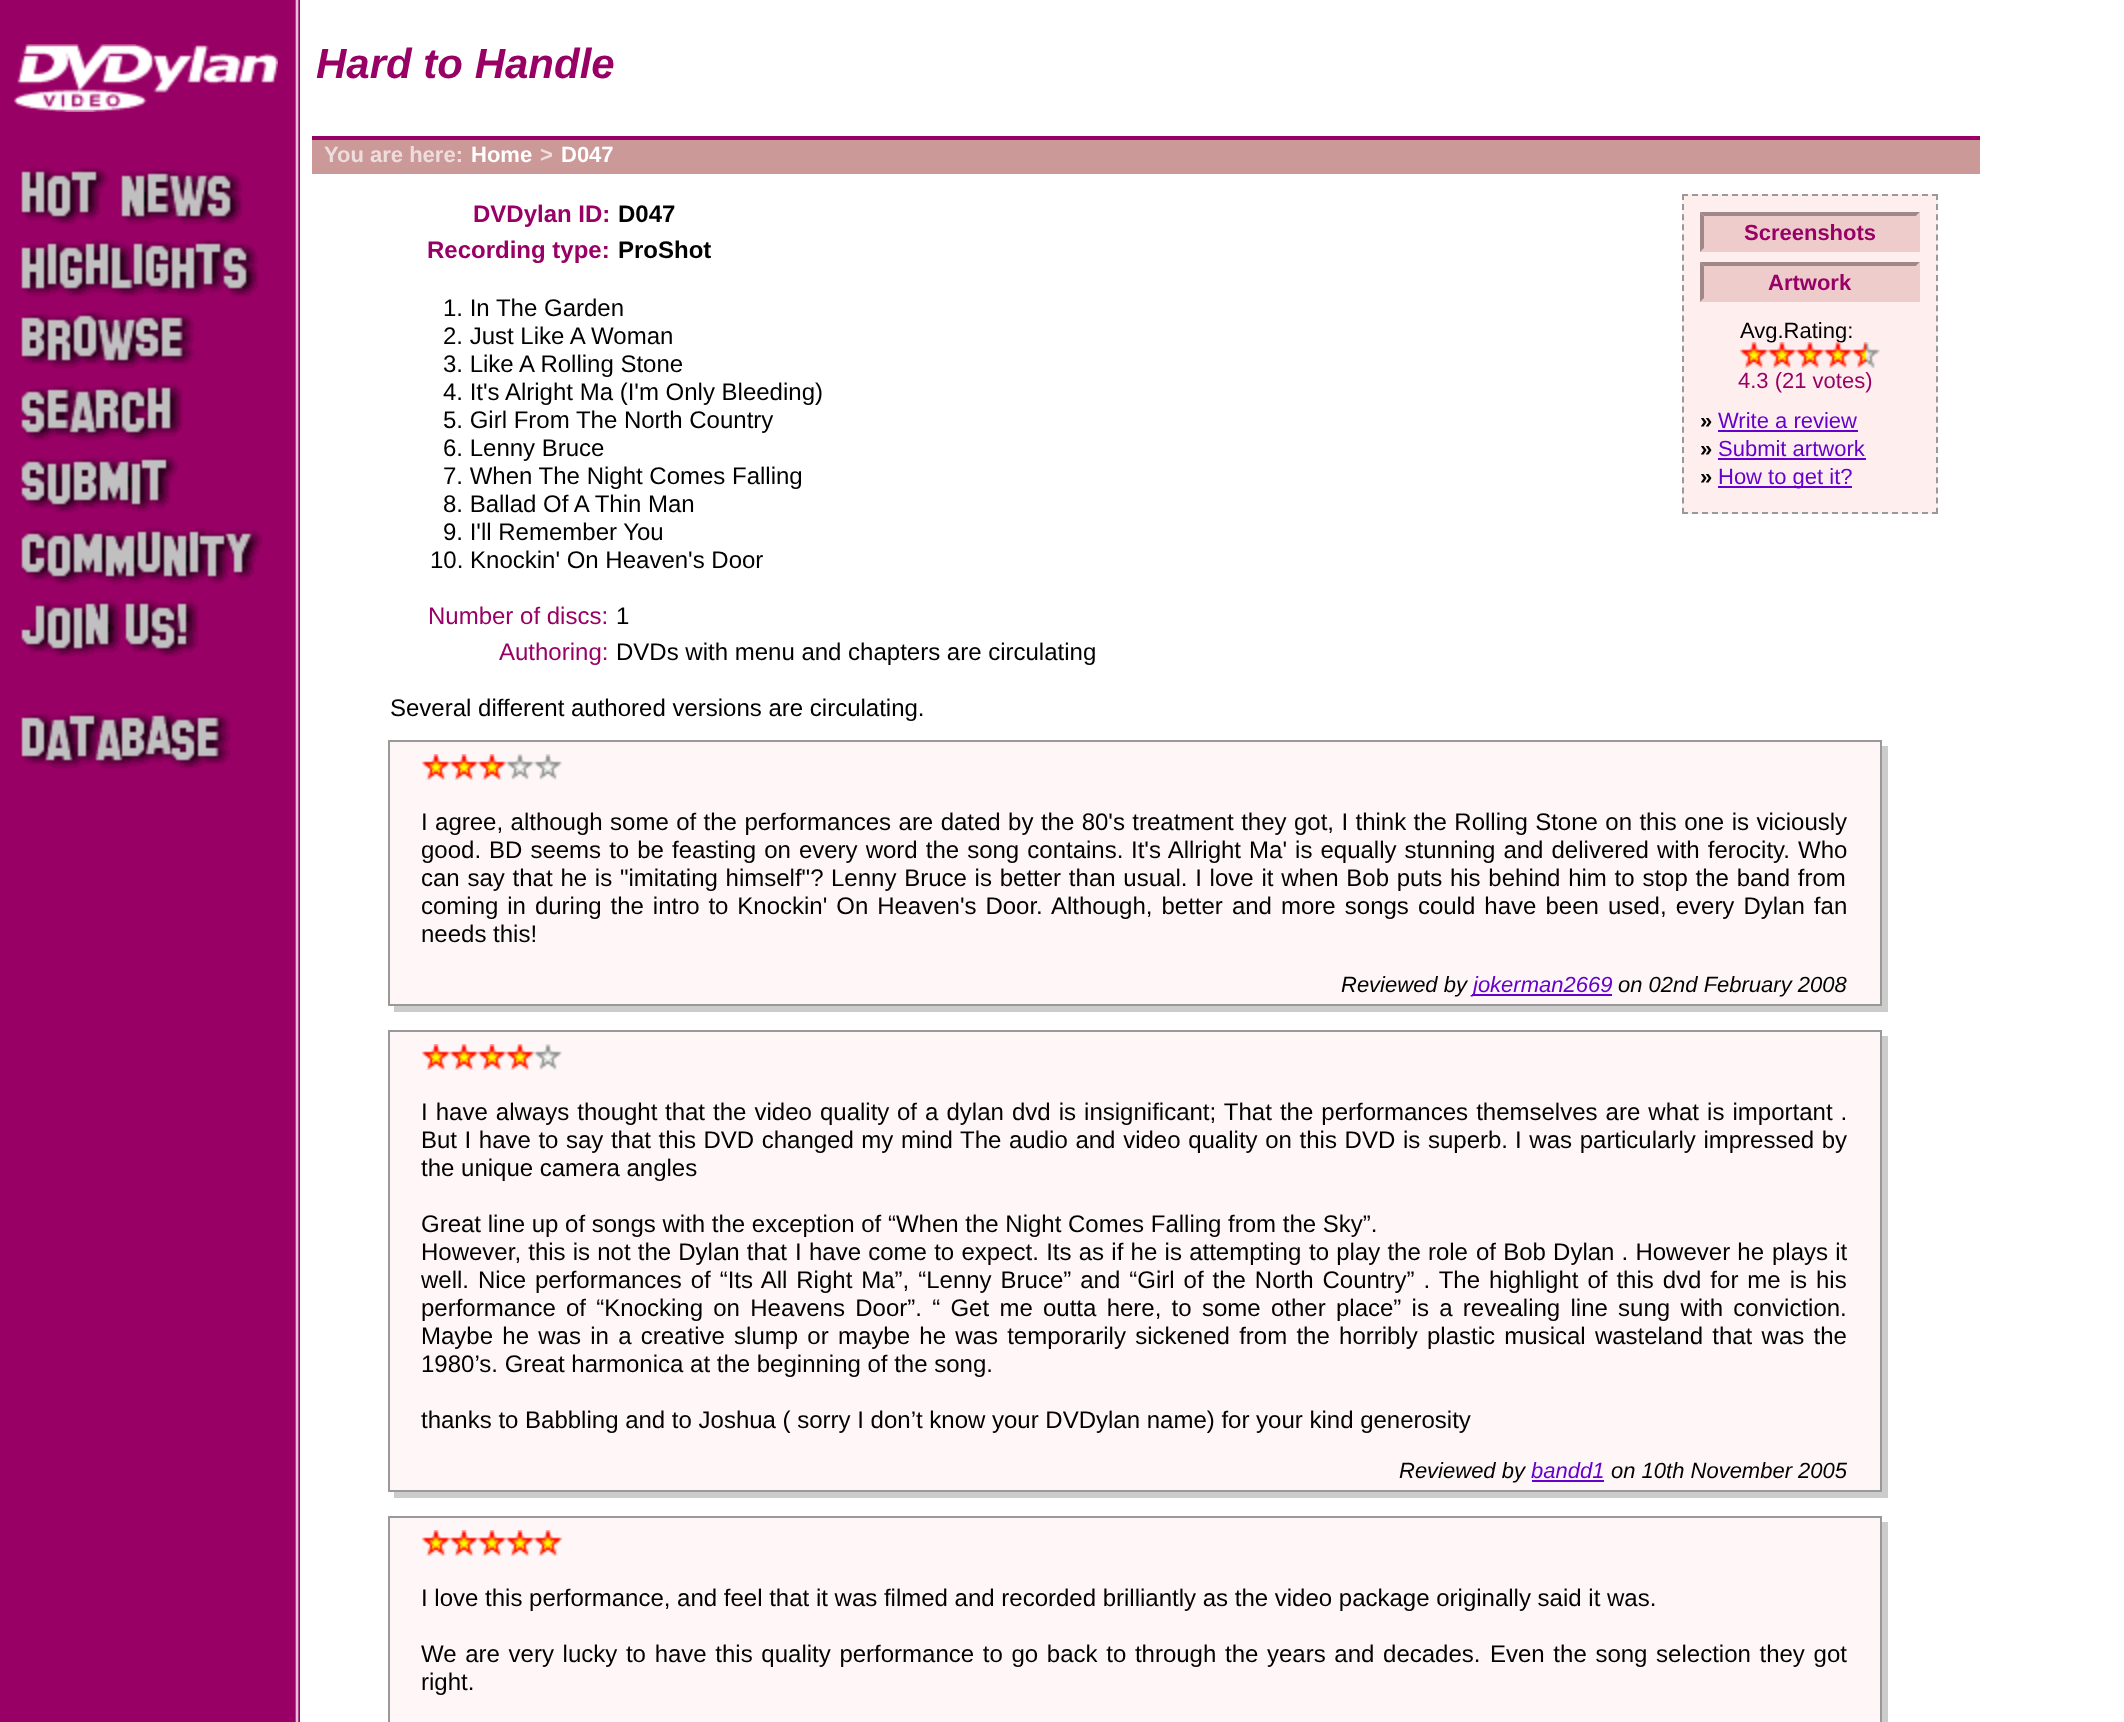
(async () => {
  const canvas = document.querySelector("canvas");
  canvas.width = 2124;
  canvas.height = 1722;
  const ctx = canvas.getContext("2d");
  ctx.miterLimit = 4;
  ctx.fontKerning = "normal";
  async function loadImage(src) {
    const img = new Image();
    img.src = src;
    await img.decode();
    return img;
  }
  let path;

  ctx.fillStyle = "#ffffff";
  ctx.fillRect(0, 0, 2124, 1722);
  ctx.drawImage(await loadImage("img/1.png"), 0, 0, 300, 1722);
  ctx.drawImage(await loadImage("img/2.png"), 14, 44, 264, 68);
  ctx.fillStyle = "#990066";
  ctx.fillRect(312, 136, 1668, 4);
  ctx.fillStyle = "#cc9999";
  ctx.fillRect(312, 140, 1668, 34);
  ctx.drawImage(await loadImage("img/3.png"), 21, 167, 222, 58);
  ctx.drawImage(await loadImage("img/4.png"), 21, 239, 238, 58);
  ctx.drawImage(await loadImage("img/5.png"), 21, 311, 174, 58);
  ctx.drawImage(await loadImage("img/6.png"), 21, 383, 162, 58);
  ctx.drawImage(await loadImage("img/7.png"), 21, 455, 158, 58);
  ctx.drawImage(await loadImage("img/8.png"), 21, 527, 242, 58);
  ctx.drawImage(await loadImage("img/9.png"), 21, 599, 178, 58);
  ctx.drawImage(await loadImage("img/10.png"), 21, 711, 210, 58);
  ctx.fillStyle = "#ffeeee";
  ctx.fillRect(1682, 194, 256, 320);
  path = new Path2D("M1682 195H1938");
  ctx.strokeStyle = "#999999";
  ctx.lineWidth = 2;
  ctx.setLineDash([6, 4]);
  ctx.stroke(path);
  path = new Path2D("M1937 194V514");
  ctx.setLineDash([6, 4.12]);
  ctx.stroke(path);
  path = new Path2D("M1682 513H1938");
  ctx.setLineDash([6, 4]);
  ctx.stroke(path);
  path = new Path2D("M1683 194V514");
  ctx.setLineDash([6, 4.12]);
  ctx.stroke(path);
  ctx.fillStyle = "#eecccc";
  ctx.fillRect(1700, 212, 220, 40);
  ctx.fillStyle = "#9f8888";
  path = new Path2D("M1700 212H1920L1916 216H1704Z");
  ctx.fill(path);
  ctx.fillStyle = "#eecccc";
  path = new Path2D("M1920 212V252L1916 248V216Z");
  ctx.fill(path);
  ctx.fillStyle = "#9f8888";
  path = new Path2D("M1700 252V212L1704 216V248Z");
  ctx.fill(path);
  ctx.fillStyle = "#eecccc";
  ctx.fillRect(1700, 262, 220, 40);
  ctx.fillStyle = "#9f8888";
  path = new Path2D("M1700 262H1920L1916 266H1704Z");
  ctx.fill(path);
  ctx.fillStyle = "#eecccc";
  path = new Path2D("M1920 262V302L1916 298V266Z");
  ctx.fill(path);
  ctx.fillStyle = "#9f8888";
  path = new Path2D("M1700 302V262L1704 266V298Z");
  ctx.fill(path);
  ctx.drawImage(await loadImage("img/14.png"), 1852, 342, 28, 26);
  for (const [x, y, w, h, color] of [
    [1718, 430, 140, 2, "#6600cc"],
    [1718, 458, 148, 2, "#6600cc"],
    [1718, 486, 134, 2, "#6600cc"],
    [394, 746, 1494, 266, "#cccccc"],
  ]) {
    ctx.fillStyle = color;
    ctx.fillRect(x, y, w, h);
  }
  ctx.fillStyle = "#fff7f7";
  ctx.beginPath();
  ctx.rect(389, 741, 1492, 264);
  ctx.fill();
  ctx.setLineDash([]);
  ctx.stroke();
  ctx.drawImage(await loadImage("img/15.png"), 422, 754, 28, 26);
  ctx.drawImage(await loadImage("img/15.png"), 450, 754, 28, 26);
  ctx.drawImage(await loadImage("img/15.png"), 478, 754, 28, 26);
  ctx.drawImage(await loadImage("img/16.png"), 506, 754, 28, 26);
  ctx.drawImage(await loadImage("img/16.png"), 534, 754, 28, 26);
  ctx.fillStyle = "#6600cc";
  ctx.fillRect(1472, 994, 140, 2);
  ctx.fillStyle = "#cccccc";
  ctx.fillRect(394, 1036, 1494, 462);
  ctx.fillStyle = "#fff7f7";
  ctx.beginPath();
  ctx.rect(389, 1031, 1492, 460);
  ctx.fill();
  ctx.stroke();
  ctx.drawImage(await loadImage("img/15.png"), 422, 1044, 28, 26);
  ctx.drawImage(await loadImage("img/15.png"), 450, 1044, 28, 26);
  ctx.drawImage(await loadImage("img/15.png"), 478, 1044, 28, 26);
  ctx.drawImage(await loadImage("img/15.png"), 506, 1044, 28, 26);
  ctx.drawImage(await loadImage("img/16.png"), 534, 1044, 28, 26);
  ctx.fillStyle = "#6600cc";
  ctx.fillRect(1532, 1480, 72, 2);
  ctx.fillStyle = "#cccccc";
  ctx.fillRect(1882, 1522, 6, 200);
  ctx.fillStyle = "#fff7f7";
  ctx.beginPath();
  ctx.rect(389, 1517, 1492, 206);
  ctx.fill();
  ctx.stroke();
  ctx.drawImage(await loadImage("img/15.png"), 422, 1530, 28, 26);
  ctx.drawImage(await loadImage("img/15.png"), 450, 1530, 28, 26);
  ctx.drawImage(await loadImage("img/15.png"), 478, 1530, 28, 26);
  ctx.drawImage(await loadImage("img/15.png"), 506, 1530, 28, 26);
  ctx.drawImage(await loadImage("img/15.png"), 534, 1530, 28, 26);
  ctx.font = "italic bold 42px Liberation Sans";
  ctx.fillStyle = "#990066";
  ctx.fillText("Hard to Handle", 316, 78);
  ctx.font = "bold 22px Liberation Sans";
  ctx.fillStyle = "#eedddd";
  ctx.fillText("You are here:", 324, 162);
  ctx.fillStyle = "#ffffff";
  ctx.fillText("Home", 471, 162);
  ctx.fillStyle = "#eedddd";
  ctx.fillText(">", 540, 162);
  ctx.fillStyle = "#ffffff";
  ctx.fillText("D047", 561, 162);
  ctx.font = "bold 24px Liberation Sans";
  ctx.fillStyle = "#990066";
  ctx.fillText("DVDylan ID:", 473, 222);
  ctx.fillStyle = "#000000";
  ctx.fillText("D047", 618, 222);
  ctx.fillStyle = "#990066";
  ctx.fillText("Recording type:", 427, 258);
  ctx.fillStyle = "#000000";
  ctx.fillText("ProShot", 618, 258);
  ctx.font = "bold 22px Liberation Sans";
  ctx.fillStyle = "#990066";
  ctx.fillText("Screenshots", 1744, 240);
  ctx.fillText("Artwork", 1768, 290);
  ctx.font = "22px Liberation Sans";
  ctx.fillStyle = "#000000";
  ctx.fillText("Avg.Rating:", 1740, 338);
  ctx.drawImage(await loadImage("img/11.png"), 1740, 342, 28, 26);
  ctx.drawImage(await loadImage("img/12.png"), 1768, 342, 28, 26);
  ctx.drawImage(await loadImage("img/11.png"), 1796, 342, 28, 26);
  ctx.drawImage(await loadImage("img/13.png"), 1824, 342, 28, 26);
  ctx.fillStyle = "#990066";
  ctx.fillText("4.3 (21 votes)", 1738, 388);
  ctx.font = "bold 22px Liberation Sans";
  ctx.fillStyle = "#000000";
  ctx.fillText("»", 1700, 428);
  ctx.font = "22px Liberation Sans";
  ctx.fillStyle = "#6600cc";
  ctx.fillText("Write a review", 1718, 428);
  ctx.font = "bold 22px Liberation Sans";
  ctx.fillStyle = "#000000";
  ctx.fillText("»", 1700, 456);
  ctx.font = "22px Liberation Sans";
  ctx.fillStyle = "#6600cc";
  ctx.fillText("Submit artwork", 1718, 456);
  ctx.font = "bold 22px Liberation Sans";
  ctx.fillStyle = "#000000";
  ctx.fillText("»", 1700, 484);
  ctx.font = "22px Liberation Sans";
  ctx.fillStyle = "#6600cc";
  ctx.fillText("How to get it?", 1718, 484);
  ctx.font = "24px Liberation Sans";
  ctx.fillStyle = "#000000";
  for (const [text, x, y] of [
    ["1. In The Garden", 443, 316],
    ["2. Just Like A Woman", 443, 344],
    ["3. Like A Rolling Stone", 443, 372],
    ["4. It's Alright Ma (I'm Only Bleeding)", 443, 400],
    ["5. Girl From The North Country", 443, 428],
    ["6. Lenny Bruce", 443, 456],
    ["7. When The Night Comes Falling", 443, 484],
    ["8. Ballad Of A Thin Man", 443, 512],
    ["9. I'll Remember You", 443, 540],
    ["10. Knockin' On Heaven's Door", 430, 568],
  ]) {
    ctx.fillText(text, x, y);
  }
  ctx.fillStyle = "#990066";
  ctx.fillText("Number of discs:", 428, 624);
  ctx.fillStyle = "#000000";
  ctx.fillText("1", 616, 624);
  ctx.fillStyle = "#990066";
  ctx.fillText("Authoring:", 499, 660);
  ctx.fillStyle = "#000000";
  ctx.fillText("DVDs with menu and chapters are circulating", 616, 660);
  ctx.fillText("Several different authored versions are circulating.", 390, 716);
  ctx.wordSpacing = "0.75px";
  ctx.fillText("I agree, although some of the performances are dated by the 80's treatment they got, I think the Rolling Stone on this one is viciously", 421, 830);
  ctx.wordSpacing = "0px";
  ctx.fillText("good.", 421, 858);
  ctx.wordSpacing = "1.4px";
  ctx.fillText("BD seems to be feasting on every word the song contains.", 489, 858);
  ctx.fillText("It's Allright Ma' is equally stunning and delivered with ferocity.", 1131, 858);
  ctx.wordSpacing = "0px";
  ctx.fillText("Who", 1798, 858);
  ctx.wordSpacing = "1.1px";
  ctx.fillText("can say that he is \"imitating himself\"?", 421, 886);
  ctx.fillText("Lenny Bruce is better than usual. I love it when Bob puts his behind him to stop the band from", 831, 886);
  ctx.wordSpacing = "2.25px";
  ctx.fillText("coming in during the intro to Knockin' On Heaven's Door.", 421, 914);
  ctx.wordSpacing = "2.4px";
  ctx.fillText("Although, better and more songs could have been used, every Dylan fan", 1051, 914);
  ctx.wordSpacing = "0px";
  ctx.fillText("needs this!", 421, 942);
  ctx.font = "italic 22px Liberation Sans";
  ctx.fillText("Reviewed by", 1341, 992);
  ctx.fillStyle = "#6600cc";
  ctx.fillText("jokerman2669", 1473, 992);
  ctx.fillStyle = "#000000";
  ctx.fillText("on 02nd February 2008", 1618, 992);
  ctx.wordSpacing = "1.4px";
  ctx.font = "24px Liberation Sans";
  for (const [text, x, y] of [
    ["I have always thought", 421, 1120],
    ["that the video quality", 665, 1120],
    ["of a dylan dvd is insignificant; That the performances themselves are what is important .", 897, 1120],
  ]) {
    ctx.fillText(text, x, y);
  }
  ctx.wordSpacing = "0.9px";
  ctx.fillText("But I have to say that this DVD changed my mind", 421, 1148);
  ctx.wordSpacing = "1px";
  ctx.fillText("The audio and video quality on this DVD is superb.", 960, 1148);
  ctx.fillText("I was particularly impressed by", 1515, 1148);
  ctx.wordSpacing = "0px";
  ctx.fillText("the unique camera angles", 421, 1176);
  ctx.fillText("Great line up of songs with the exception of “When the Night Comes Falling from the Sky”.", 421, 1232);
  ctx.wordSpacing = "0.5px";
  ctx.fillText("However, this is not the Dylan that", 421, 1260);
  ctx.wordSpacing = "0.6px";
  ctx.fillText("I have come to expect. Its as if he is attempting", 795, 1260);
  ctx.wordSpacing = "0.5px";
  for (const [text, x, y] of [
    ["to play the role", 1309, 1260],
    ["of Bob Dylan . However he", 1476, 1260],
    ["plays it", 1772, 1260],
  ]) {
    ctx.fillText(text, x, y);
  }
  ctx.wordSpacing = "0px";
  ctx.fillText("well.", 421, 1288);
  ctx.wordSpacing = "2.3px";
  ctx.fillText("Nice performances of “Its All Right Ma”, “Lenny Bruce” and “Girl of the North Country” . The highlight of this dvd for me is his", 478, 1288);
  ctx.wordSpacing = "3.6px";
  ctx.fillText("performance of “Knocking on Heavens Door”. “ Get me outta here, to some", 421, 1316);
  ctx.fillText("other place” is a revealing line sung with conviction.", 1271, 1316);
  ctx.wordSpacing = "2.6px";
  ctx.fillText("Maybe he was in a creative slump or maybe he was temporarily sickened from the horribly plastic musical wasteland that was the", 421, 1344);
  ctx.wordSpacing = "0px";
  ctx.fillText("1980’s. Great harmonica at the beginning of the song.", 421, 1372);
  ctx.fillText("thanks to Babbling and to Joshua ( sorry I don’t know your DVDylan name) for your kind generosity", 421, 1428);
  ctx.font = "italic 22px Liberation Sans";
  ctx.fillText("Reviewed by", 1399, 1478);
  ctx.fillStyle = "#6600cc";
  ctx.fillText("bandd1", 1531, 1478);
  ctx.fillStyle = "#000000";
  ctx.fillText("on 10th November 2005", 1611, 1478);
  ctx.font = "24px Liberation Sans";
  ctx.fillText("I love this performance, and feel that it was filmed and recorded brilliantly as the video package originally said it was.", 421, 1606);
  ctx.wordSpacing = "2px";
  ctx.fillText("We are very lucky to have this quality performance to go back to through the years and decades.", 421, 1662);
  ctx.fillText("Even the song selection they got", 1490, 1662);
  ctx.wordSpacing = "0px";
  ctx.fillText("right.", 421, 1690);
})();
